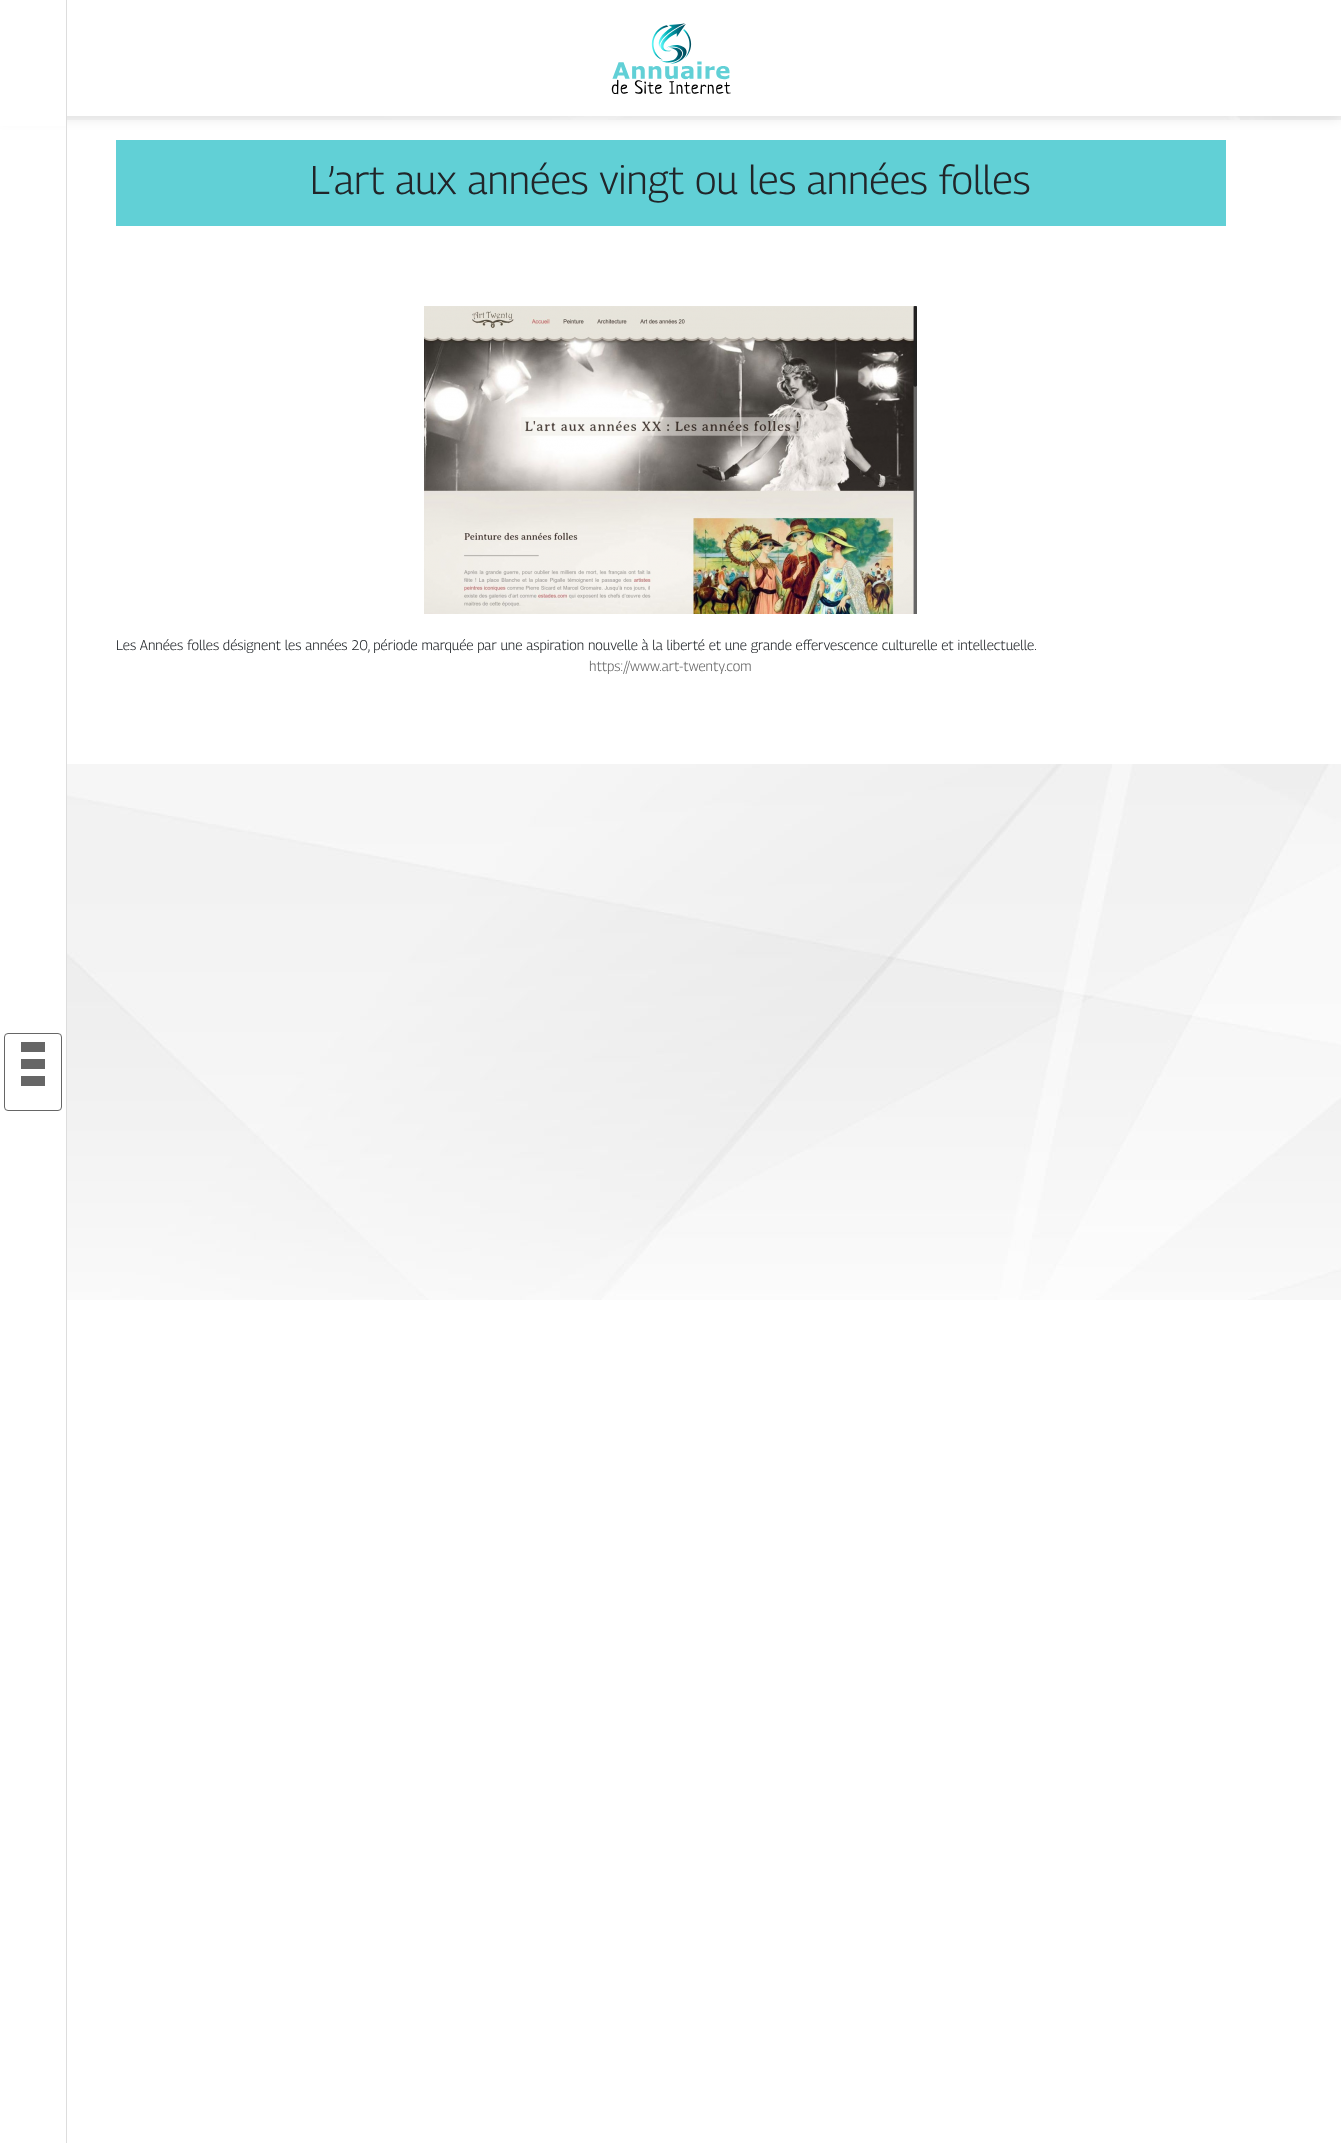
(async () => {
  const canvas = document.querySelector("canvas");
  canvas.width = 1341;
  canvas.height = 2143;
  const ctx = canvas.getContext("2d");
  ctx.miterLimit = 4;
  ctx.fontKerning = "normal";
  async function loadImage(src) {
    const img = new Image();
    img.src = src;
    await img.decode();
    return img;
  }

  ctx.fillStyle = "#ffffff";
  ctx.fillRect(0, 0, 1341, 2143);
  ctx.drawImage(await loadImage("img/1.png"), 67, 116, 1274, 1184);
  ctx.fillRect(67, 120, 1274, 644);
  ctx.fillStyle = "rgba(0, 0, 0, 0.1)";
  ctx.filter = "blur(6.5px)";
  ctx.beginPath();
  ctx.rect(0, 2, 1341, 116);
  ctx.fill();
  ctx.filter = "none";
  for (const [x, y, w, h, color] of [
    [67, 0, 1274, 116, "#ffffff"],
    [0, 0, 66, 126, "#ffffff"],
    [66, 0, 1, 2143, "#dddddd"],
  ]) {
    ctx.fillStyle = color;
    ctx.fillRect(x, y, w, h);
  }
  ctx.beginPath();
  ctx.roundRect(4.5, 1033.5, 57, 77, 3.5);
  ctx.strokeStyle = "#666666";
  ctx.stroke();
  for (const [x, y, w, h, color] of [
    [21, 1042, 24, 10, "#666666"],
    [21, 1059, 24, 10, "#666666"],
    [21, 1076, 24, 10, "#666666"],
  ]) {
    ctx.fillStyle = color;
    ctx.fillRect(x, y, w, h);
  }
  ctx.drawImage(await loadImage("img/2.png"), 611, 23, 120, 72);
  ctx.fillStyle = "#61d0d6";
  ctx.fillRect(116, 140, 1110, 86);
  ctx.drawImage(await loadImage("img/3.png"), 424, 306, 493, 308);
  ctx.font = "100 40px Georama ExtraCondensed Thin";
  ctx.fillStyle = "#212529";
  ctx.fillText("L’art aux années vingt ou les années folles", 310, 194);
  ctx.font = "100 14px Georama ExtraCondensed Thin";
  ctx.fillText("Les Années folles désignent les années 20, période marquée par une aspiration nouvelle à la liberté et une grande effervescence culturelle et intellectuelle.", 116, 650);
  ctx.fillStyle = "#666666";
  ctx.fillText("https://www.art-twenty.com", 589, 671);
})();
